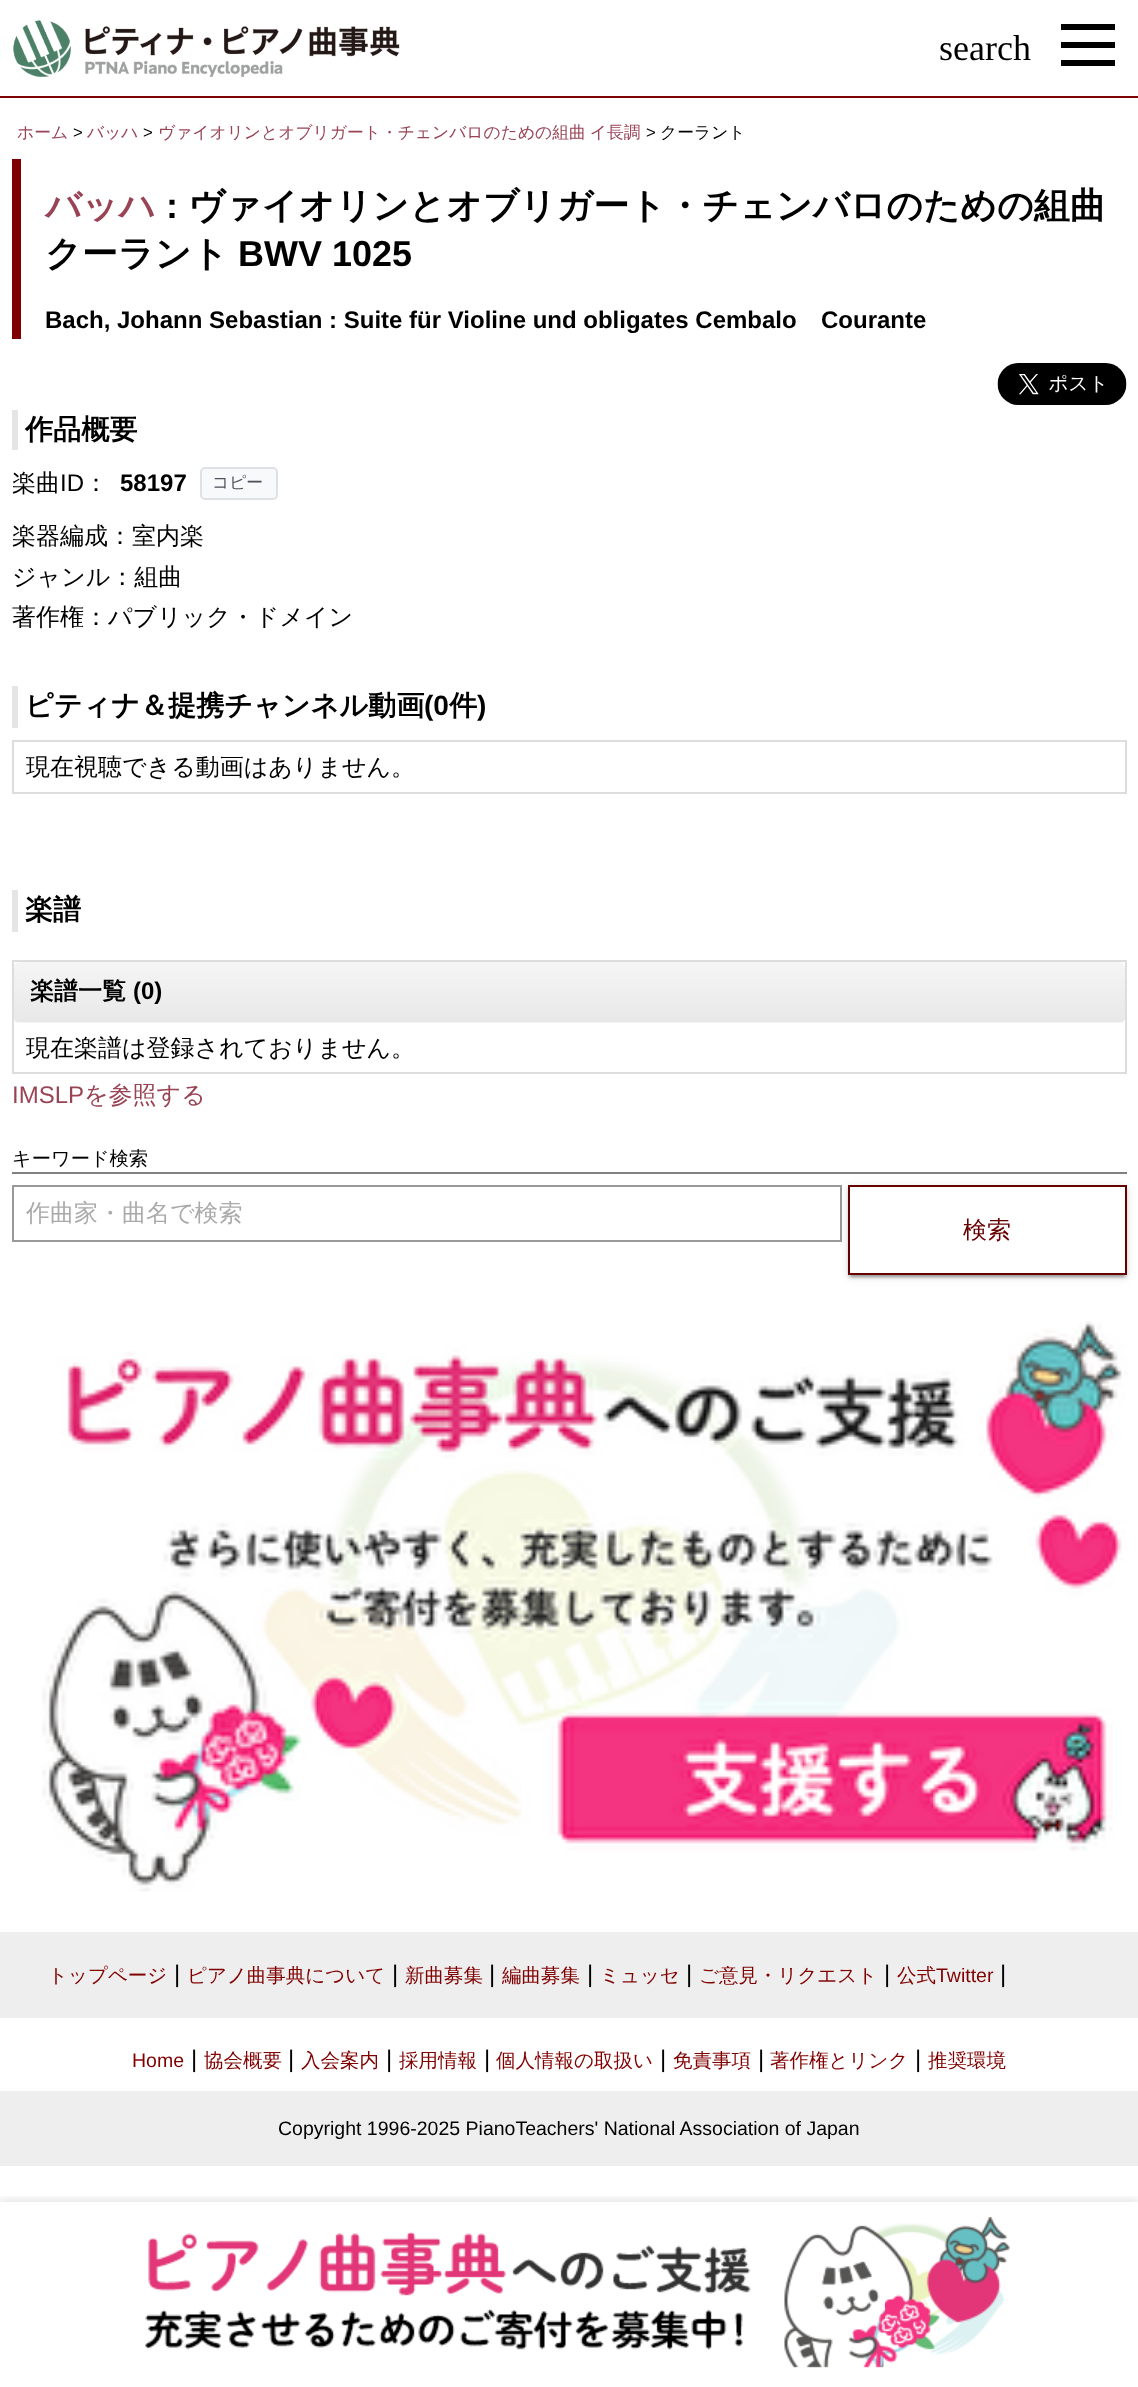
(async () => {
  const canvas = document.querySelector("canvas");
  canvas.width = 1138;
  canvas.height = 2387;
  const ctx = canvas.getContext("2d");
  ctx.miterLimit = 4;
  ctx.fontKerning = "normal";
  async function loadImage(src) {
    const img = new Image();
    img.src = src;
    await img.decode();
    return img;
  }
  let gradient;

  ctx.fillStyle = "#ffffff";
  ctx.fillRect(0, 0, 1138, 2387);
  ctx.drawImage(await loadImage("img/1.png"), 13, 20, 387, 57);
  for (const [x, y, w, h, color] of [
    [0, 96, 1138, 2, "#800000"],
    [1061, 24, 54, 6, "#000000"],
    [1061, 42, 54, 6, "#000000"],
    [1061, 60, 54, 6, "#000000"],
    [12, 159, 9, 180, "#800000"],
  ]) {
    ctx.fillStyle = color;
    ctx.fillRect(x, y, w, h);
  }
  ctx.drawImage(await loadImage("img/2.png"), 997, 363, 130, 42);
  ctx.fillStyle = "#e5e5e5";
  ctx.fillRect(12, 410, 6, 40);
  ctx.fillStyle = "#f8f9fa";
  ctx.beginPath();
  ctx.roundRect(201, 468, 76, 31, 4);
  ctx.fill();
  ctx.strokeStyle = "#dee2e6";
  ctx.lineWidth = 2;
  ctx.stroke();
  ctx.fillStyle = "#e5e5e5";
  ctx.fillRect(12, 686, 6, 42);
  ctx.strokeStyle = "#dddddd";
  ctx.strokeRect(13, 741, 1113, 52);
  ctx.fillRect(12, 890, 6, 42);
  ctx.strokeRect(13, 961, 1113, 112);
  ctx.save();
  ctx.beginPath();
  ctx.roundRect(14, 962, 1111, 61, 5);
  ctx.clip();
  gradient = ctx.createLinearGradient(569, 962, 569, 1022);
  gradient.addColorStop(0, "#f5f5f5");
  gradient.addColorStop(1, "#e8e8e8");
  ctx.fillStyle = gradient;
  ctx.beginPath();
  ctx.roundRect(14, 962, 1111, 60, [5, 5, 0, 0]);
  ctx.fill();
  gradient = ctx.createLinearGradient(569, 1022, 569, 1082);
  gradient.addColorStop(0, "#f5f5f5");
  gradient.addColorStop(1, "#e8e8e8");
  ctx.fillStyle = gradient;
  ctx.fillRect(14, 1022, 1111, 1);
  ctx.restore();
  ctx.fillStyle = "#808080";
  ctx.fillRect(12, 1172, 1115, 2);
  ctx.strokeStyle = "#999999";
  ctx.strokeRect(13, 1186, 828, 55);
  ctx.fillStyle = "rgba(0, 0, 0, 0.2)";
  ctx.filter = "blur(1px)";
  ctx.beginPath();
  ctx.rect(851, 1193, 273, 84);
  ctx.fill();
  ctx.filter = "none";
  ctx.fillStyle = "rgba(0, 0, 0, 0.12)";
  ctx.filter = "blur(4px)";
  ctx.beginPath();
  ctx.rect(848, 1187, 279, 90);
  ctx.fill();
  ctx.filter = "none";
  ctx.fillStyle = "rgba(0, 0, 0, 0.14)";
  ctx.filter = "blur(1.5px)";
  ctx.beginPath();
  ctx.rect(848, 1188, 279, 90);
  ctx.fill();
  ctx.filter = "none";
  ctx.fillStyle = "#ffffff";
  ctx.beginPath();
  ctx.rect(849, 1186, 277, 88);
  ctx.fill();
  ctx.strokeStyle = "#660000";
  ctx.stroke();
  ctx.drawImage(await loadImage("img/3.png"), 42, 1321, 1086, 571);
  ctx.fillStyle = "#eeeeee";
  ctx.fillRect(0, 1932, 1138, 86);
  ctx.fillRect(0, 2091, 1138, 75);
  ctx.save();
  ctx.beginPath();
  ctx.rect(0, 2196, 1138, 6);
  ctx.clip();
  ctx.fillStyle = "rgba(0, 0, 0, 0.1)";
  ctx.filter = "blur(4px)";
  ctx.beginPath();
  ctx.rect(0, 2199, 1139, 186);
  ctx.fill();
  ctx.filter = "none";
  ctx.restore();
  ctx.drawImage(await loadImage("img/4.png"), 145, 2217, 865, 151);
  ctx.font = "36px Liberation Serif";
  ctx.fillStyle = "#000000";
  ctx.fillText("search", 939, 60);
  ctx.font = "500 16.8px WenQuanYi Zen Hei";
  ctx.fillStyle = "#994455";
  ctx.fillText("ホーム", 17, 138);
  ctx.font = "16.8px Liberation Sans";
  ctx.fillStyle = "#000000";
  ctx.fillText(">", 73, 138);
  ctx.font = "500 16.8px WenQuanYi Zen Hei";
  ctx.fillStyle = "#994455";
  ctx.fillText("バッハ", 87, 138);
  ctx.font = "16.8px Liberation Sans";
  ctx.fillStyle = "#000000";
  ctx.fillText(">", 143, 138);
  ctx.wordSpacing = "-1px";
  ctx.font = "500 16.8px WenQuanYi Zen Hei";
  ctx.fillStyle = "#994455";
  ctx.fillText("ヴァイオリンとオブリガート・チェンバロのための組曲 イ長調", 158, 138);
  ctx.wordSpacing = "0px";
  ctx.font = "16.8px Liberation Sans";
  ctx.fillStyle = "#000000";
  ctx.fillText(">", 646, 138);
  ctx.font = "500 16.8px WenQuanYi Zen Hei";
  ctx.fillText("クーラント", 660, 138);
  ctx.font = "bold 36px WenQuanYi Zen Hei";
  ctx.fillStyle = "#994455";
  ctx.fillText("バッハ", 45, 218);
  ctx.font = "bold 36px Liberation Sans";
  ctx.fillStyle = "#000000";
  ctx.fillText(":", 166, 218);
  ctx.font = "bold 36px WenQuanYi Zen Hei";
  ctx.fillText("ヴァイオリンとオブリガート・チェンバロのための組曲", 188, 218);
  ctx.fillText("クーラント", 45, 266);
  ctx.font = "bold 36px Liberation Sans";
  ctx.fillText("BWV 1025", 238, 266);
  ctx.font = "bold 24px Liberation Sans";
  ctx.fillText("Bach, Johann Sebastian : Suite für Violine und obligates Cembalo", 45, 328);
  ctx.fillText("Courante", 821, 328);
  ctx.font = "bold 28.1px WenQuanYi Zen Hei";
  ctx.fillText("作品概要", 25, 439);
  ctx.font = "500 24px WenQuanYi Zen Hei";
  ctx.fillText("楽曲", 12, 491);
  ctx.font = "24px Liberation Sans";
  ctx.fillText("ID", 60, 491);
  ctx.font = "500 24px WenQuanYi Zen Hei";
  ctx.fillText("：", 84, 491);
  ctx.font = "bold 24px Liberation Sans";
  ctx.fillText("58197", 120, 491);
  ctx.font = "500 16.8px WenQuanYi Zen Hei";
  ctx.fillStyle = "#495057";
  ctx.fillText("コピー", 212, 488);
  ctx.font = "500 24px WenQuanYi Zen Hei";
  ctx.fillStyle = "#000000";
  for (const [text, x, y] of [
    ["楽器編成：室内楽", 12, 544],
    ["ジャンル：組曲", 12, 585],
    ["著作権：パブリック・ドメイン", 12, 625],
  ]) {
    ctx.fillText(text, x, y);
  }
  ctx.font = "bold 28.1px WenQuanYi Zen Hei";
  ctx.fillText("ピティナ＆提携チャンネル動画", 25, 715);
  ctx.font = "bold 28.1px Liberation Sans";
  ctx.fillText("(0", 424, 715);
  ctx.font = "bold 28.1px WenQuanYi Zen Hei";
  ctx.fillText("件", 449, 715);
  ctx.font = "bold 28.1px Liberation Sans";
  ctx.fillText(")", 477, 715);
  ctx.font = "500 24px WenQuanYi Zen Hei";
  ctx.fillText("現在視聴できる動画はありません。", 26, 775);
  ctx.font = "bold 28.1px WenQuanYi Zen Hei";
  ctx.fillText("楽譜", 25, 919);
  ctx.font = "bold 24px WenQuanYi Zen Hei";
  ctx.fillText("楽譜一覧", 30, 999);
  ctx.font = "bold 24px Liberation Sans";
  ctx.fillText("(0)", 133, 999);
  ctx.font = "500 24px WenQuanYi Zen Hei";
  ctx.fillText("現在楽譜は登録されておりません。", 26, 1056);
  ctx.font = "24px Liberation Sans";
  ctx.fillStyle = "#994455";
  ctx.fillText("IMSLP", 12, 1103);
  ctx.font = "500 24px WenQuanYi Zen Hei";
  ctx.fillText("を参照する", 84, 1103);
  ctx.font = "500 19.25px WenQuanYi Zen Hei";
  ctx.fillStyle = "#000000";
  ctx.fillText("キーワード検索", 12, 1165);
  ctx.font = "500 24px WenQuanYi Zen Hei";
  ctx.fillStyle = "#aaaaaa";
  ctx.fillText("作曲家・曲名で検索", 26, 1221);
  ctx.fillStyle = "#660000";
  ctx.fillText("検索", 963, 1238);
  ctx.font = "500 19.5px WenQuanYi Zen Hei";
  ctx.fillStyle = "#800000";
  ctx.fillText("トップページ", 48, 1982);
  ctx.font = "24px Liberation Sans";
  ctx.fillStyle = "#000000";
  ctx.fillText("|", 174, 1982);
  ctx.font = "500 19.5px WenQuanYi Zen Hei";
  ctx.fillStyle = "#800000";
  ctx.fillText("ピアノ曲事典について", 187, 1982);
  ctx.font = "24px Liberation Sans";
  ctx.fillStyle = "#000000";
  ctx.fillText("|", 392, 1982);
  ctx.font = "500 19.5px WenQuanYi Zen Hei";
  ctx.fillStyle = "#800000";
  ctx.fillText("新曲募集", 405, 1982);
  ctx.font = "24px Liberation Sans";
  ctx.fillStyle = "#000000";
  ctx.fillText("|", 489, 1982);
  ctx.font = "500 19.5px WenQuanYi Zen Hei";
  ctx.fillStyle = "#800000";
  ctx.fillText("編曲募集", 502, 1982);
  ctx.font = "24px Liberation Sans";
  ctx.fillStyle = "#000000";
  ctx.fillText("|", 587, 1982);
  ctx.font = "500 19.5px WenQuanYi Zen Hei";
  ctx.fillStyle = "#800000";
  ctx.fillText("ミュッセ", 600, 1982);
  ctx.font = "24px Liberation Sans";
  ctx.fillStyle = "#000000";
  ctx.fillText("|", 686, 1982);
  ctx.font = "500 19.5px WenQuanYi Zen Hei";
  ctx.fillStyle = "#800000";
  ctx.fillText("ご意見・リクエスト", 699, 1982);
  ctx.font = "24px Liberation Sans";
  ctx.fillStyle = "#000000";
  ctx.fillText("|", 884, 1982);
  ctx.font = "500 19.5px WenQuanYi Zen Hei";
  ctx.fillStyle = "#800000";
  ctx.fillText("公式", 897, 1982);
  ctx.font = "19.5px Liberation Sans";
  ctx.fillText("Twitter", 936, 1982);
  ctx.font = "24px Liberation Sans";
  ctx.fillStyle = "#000000";
  ctx.fillText("|", 1000, 1982);
  ctx.font = "19.5px Liberation Sans";
  ctx.fillStyle = "#800000";
  ctx.fillText("Home", 132, 2067);
  ctx.font = "24px Liberation Sans";
  ctx.fillStyle = "#000000";
  ctx.fillText("|", 191, 2067);
  ctx.font = "500 19.5px WenQuanYi Zen Hei";
  ctx.fillStyle = "#800000";
  ctx.fillText("協会概要", 204, 2067);
  ctx.font = "24px Liberation Sans";
  ctx.fillStyle = "#000000";
  ctx.fillText("|", 288, 2067);
  ctx.font = "500 19.5px WenQuanYi Zen Hei";
  ctx.fillStyle = "#800000";
  ctx.fillText("入会案内", 301, 2067);
  ctx.font = "24px Liberation Sans";
  ctx.fillStyle = "#000000";
  ctx.fillText("|", 386, 2067);
  ctx.font = "500 19.5px WenQuanYi Zen Hei";
  ctx.fillStyle = "#800000";
  ctx.fillText("採用情報", 399, 2067);
  ctx.font = "24px Liberation Sans";
  ctx.fillStyle = "#000000";
  ctx.fillText("|", 484, 2067);
  ctx.font = "500 19.5px WenQuanYi Zen Hei";
  ctx.fillStyle = "#800000";
  ctx.fillText("個人情報の取扱い", 496, 2067);
  ctx.font = "24px Liberation Sans";
  ctx.fillStyle = "#000000";
  ctx.fillText("|", 660, 2067);
  ctx.font = "500 19.5px WenQuanYi Zen Hei";
  ctx.fillStyle = "#800000";
  ctx.fillText("免責事項", 673, 2067);
  ctx.font = "24px Liberation Sans";
  ctx.fillStyle = "#000000";
  ctx.fillText("|", 758, 2067);
  ctx.font = "500 19.5px WenQuanYi Zen Hei";
  ctx.fillStyle = "#800000";
  ctx.fillText("著作権とリンク", 770, 2067);
  ctx.font = "24px Liberation Sans";
  ctx.fillStyle = "#000000";
  ctx.fillText("|", 915, 2067);
  ctx.font = "500 19.5px WenQuanYi Zen Hei";
  ctx.fillStyle = "#800000";
  ctx.fillText("推奨環境", 928, 2067);
  ctx.font = "19.5px Liberation Sans";
  ctx.fillStyle = "#000000";
  ctx.fillText("Copyright 1996-2025 PianoTeachers' National Association of Japan", 278, 2135);
})();
